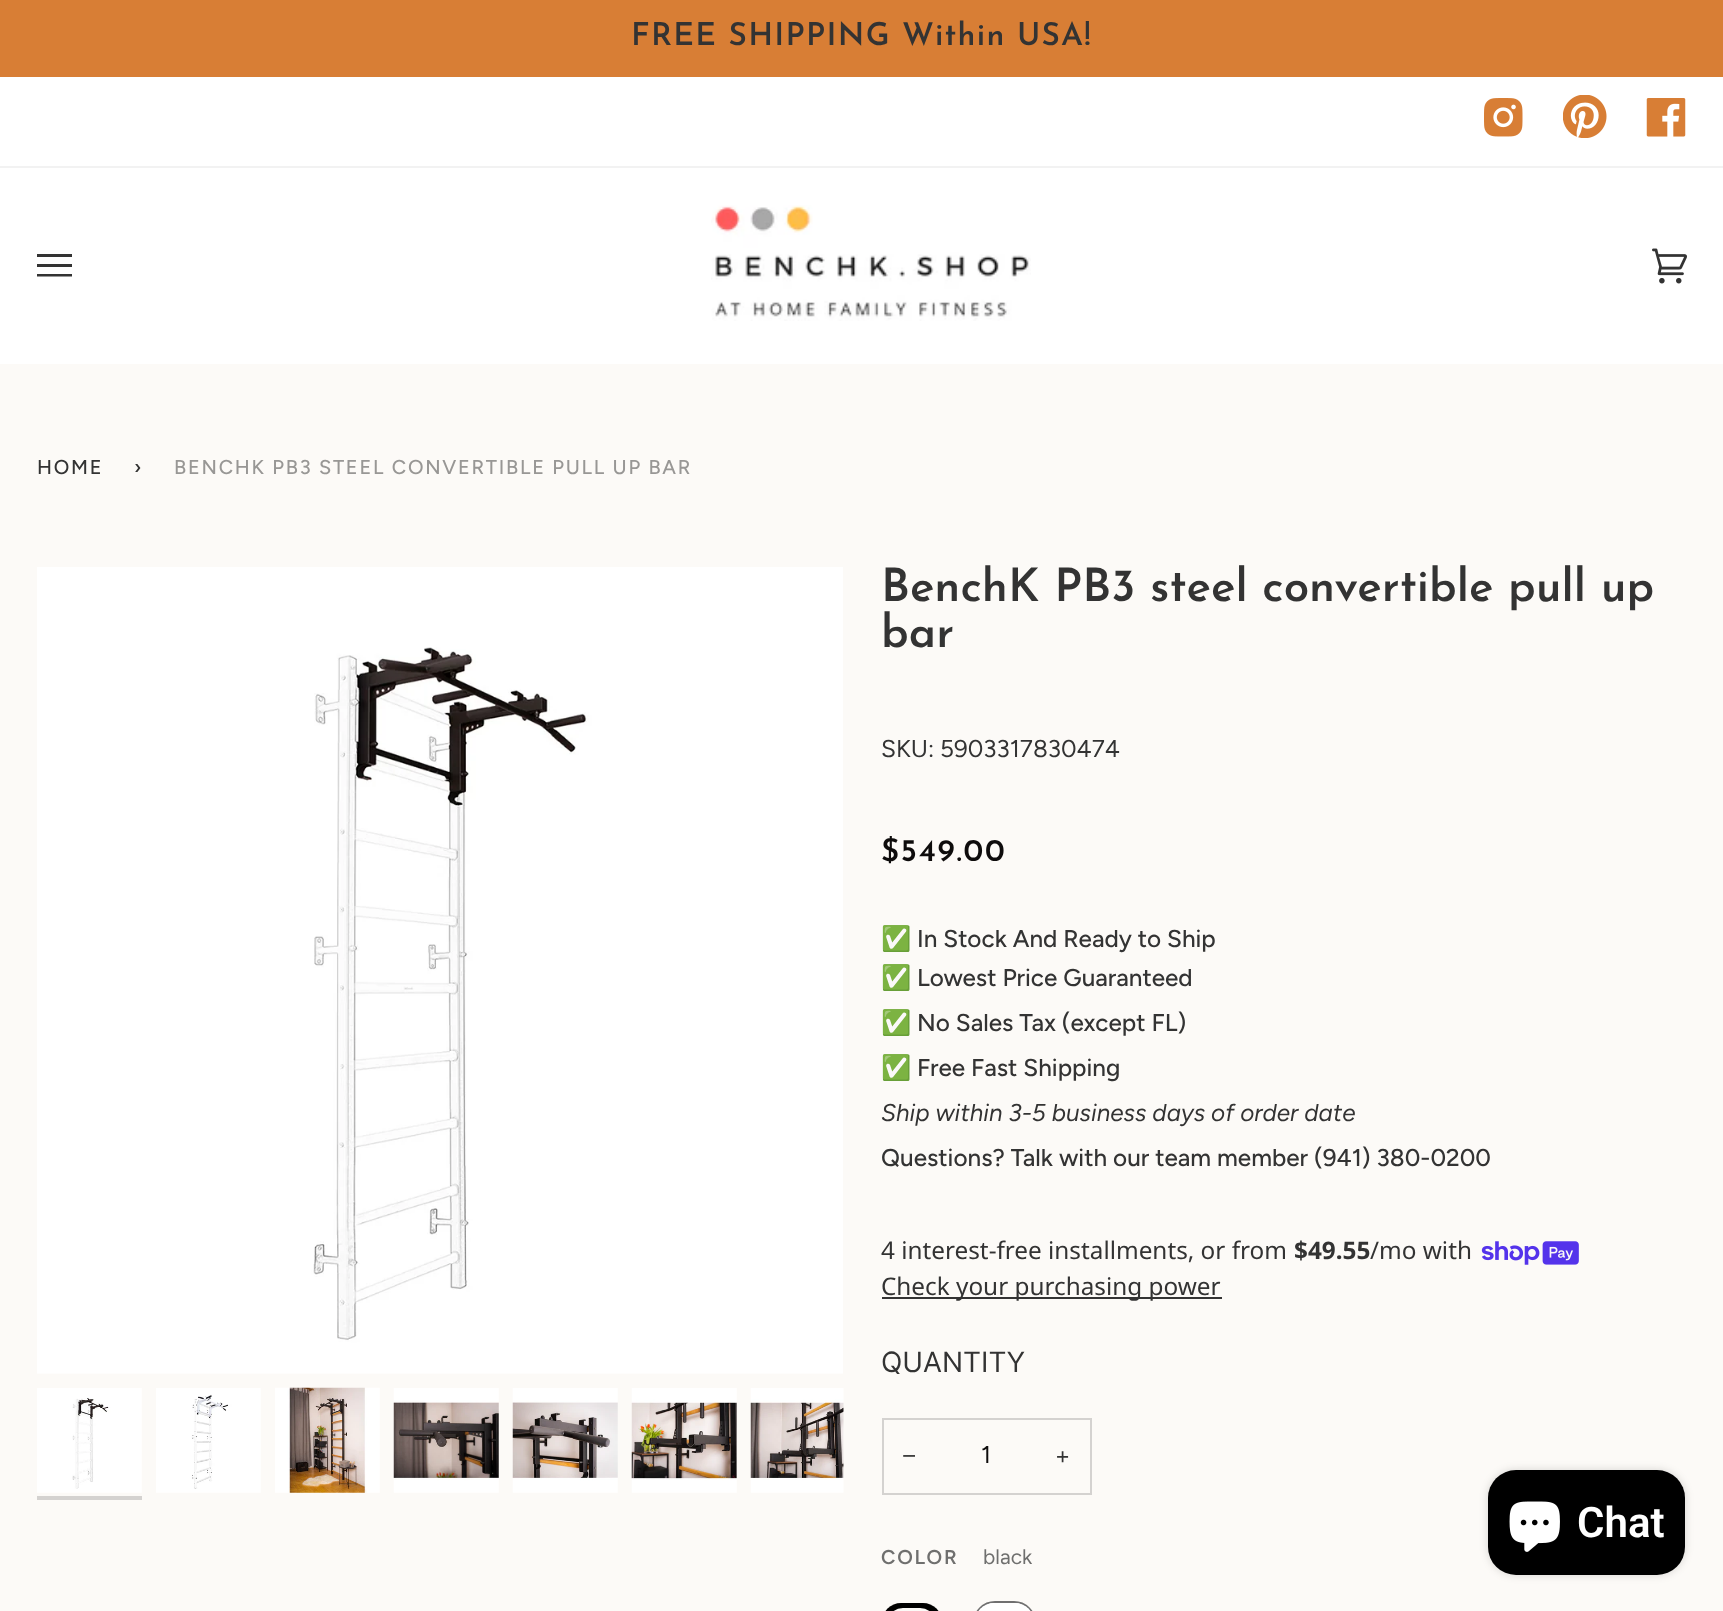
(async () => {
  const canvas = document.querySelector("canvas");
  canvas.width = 1723;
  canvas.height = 1611;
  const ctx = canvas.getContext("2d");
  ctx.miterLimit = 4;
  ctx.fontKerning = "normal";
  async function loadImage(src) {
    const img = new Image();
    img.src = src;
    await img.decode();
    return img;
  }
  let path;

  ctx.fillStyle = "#ffffff";
  ctx.fillRect(0, 0, 1723, 1611);
  ctx.fillStyle = "#d87e35";
  ctx.fillRect(0, 0, 1723, 77);
  ctx.fillStyle = "#f2f2f2";
  ctx.fillRect(0, 166, 1723, 2);
  ctx.drawImage(await loadImage("img/1.png"), 1484, 98, 39, 39);
  ctx.drawImage(await loadImage("img/2.png"), 1563, 95, 44, 43);
  ctx.drawImage(await loadImage("img/3.png"), 1646, 98, 40, 39);
  ctx.fillStyle = "#333333";
  path = new Path2D("M37 254H72V257H37ZM37 264H72V267H37ZM37 274H72V276.5H37Z");
  ctx.fill(path);
  ctx.drawImage(await loadImage("img/4.png"), 711, 205, 320, 116);
  ctx.drawImage(await loadImage("img/5.png"), 1652, 248, 35, 36);
  ctx.fillStyle = "#fcfaf7";
  ctx.fillRect(0, 364, 1723, 1247);
  ctx.drawImage(await loadImage("img/6.png"), 37, 567, 806, 807);
  ctx.drawImage(await loadImage("img/7.png"), 37, 1388, 105, 105);
  ctx.fillStyle = "#d4d2d0";
  ctx.fillRect(37, 1496, 105, 4);
  ctx.drawImage(await loadImage("img/8.png"), 156, 1388, 105, 105);
  ctx.drawImage(await loadImage("img/9.png"), 275, 1387, 105, 106);
  ctx.drawImage(await loadImage("img/10.png"), 393, 1388, 106, 105);
  ctx.drawImage(await loadImage("img/11.png"), 512, 1388, 106, 105);
  ctx.drawImage(await loadImage("img/12.png"), 631, 1388, 106, 105);
  ctx.drawImage(await loadImage("img/13.png"), 750, 1388, 94, 105);
  ctx.drawImage(await loadImage("img/14.png"), 1481, 1241, 98, 24);
  ctx.fillStyle = "#333333";
  ctx.fillRect(882, 1297, 340, 2);
  ctx.strokeStyle = "#d4d2d0";
  ctx.lineWidth = 2;
  ctx.strokeRect(883, 1419, 208, 75);
  ctx.fillStyle = "#000000";
  ctx.beginPath();
  ctx.roundRect(882, 1603, 60, 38, 30);
  ctx.fill();
  ctx.beginPath();
  ctx.roundRect(889, 1610, 45, 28, 22.5);
  ctx.strokeStyle = "#fcfaf7";
  ctx.lineWidth = 4;
  ctx.stroke();
  ctx.beginPath();
  ctx.roundRect(974, 1602, 61, 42, 30.5);
  ctx.strokeStyle = "#707070";
  ctx.lineWidth = 2;
  ctx.stroke();
  ctx.fillStyle = "#ffffff";
  ctx.beginPath();
  ctx.roundRect(975, 1603, 59, 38, 29.5);
  ctx.fill();
  ctx.fillStyle = "rgba(0, 0, 0, 0.15)";
  ctx.filter = "blur(4.5px)";
  ctx.beginPath();
  ctx.roundRect(1488, 1470, 197, 105, 28);
  ctx.fill();
  ctx.filter = "none";
  ctx.fillStyle = "#000000";
  ctx.beginPath();
  ctx.roundRect(1488, 1470, 197, 105, 28);
  ctx.fill();
  ctx.drawImage(await loadImage("img/15.png"), 1509, 1501, 51, 51);
  ctx.letterSpacing = "1.25px";
  ctx.font = "600 31.5px Josefin Sans";
  ctx.fillStyle = "#333333";
  ctx.fillText("FREE SHIPPING Within USA!", 631, 45);
  ctx.letterSpacing = "1.75px";
  ctx.font = "500 19.95px Figtree";
  ctx.fillText("HOME", 37, 474);
  ctx.fillText("›", 134, 474);
  ctx.fillStyle = "#989795";
  ctx.fillText("BENCHK PB3 STEEL CONVERTIBLE PULL UP BAR", 174, 474);
  ctx.letterSpacing = "0px";
  ctx.font = "600 45.9px Josefin Sans";
  ctx.fillStyle = "#333333";
  ctx.fillText("BenchK PB3 steel convertible pull up", 881, 601);
  ctx.fillText("bar", 881, 647);
  ctx.font = "24.3px Figtree";
  ctx.fillText("SKU: 5903317830474", 881, 757);
  ctx.letterSpacing = "1.75px";
  ctx.font = "600 31.5px Josefin Sans";
  ctx.fillStyle = "#0e0c0c";
  ctx.fillText("$549.00", 881, 861);
  ctx.letterSpacing = "0px";
  ctx.font = "24.3px Noto Color Emoji";
  ctx.fillStyle = "#333333";
  ctx.fillText("✅", 881, 947);
  ctx.font = "500 24.3px Figtree";
  ctx.fillText("In Stock And Ready to Ship", 917, 947);
  ctx.font = "24.3px Noto Color Emoji";
  ctx.fillText("✅", 881, 986);
  ctx.font = "500 24.3px Figtree";
  ctx.fillText("Lowest Price Guaranteed", 917, 986);
  ctx.font = "24.3px Noto Color Emoji";
  ctx.fillText("✅", 881, 1031);
  ctx.font = "500 24.3px Figtree";
  ctx.fillText("No Sales Tax (except FL)", 917, 1031);
  ctx.font = "24.3px Noto Color Emoji";
  ctx.fillText("✅", 881, 1076);
  ctx.font = "500 24.3px Figtree";
  ctx.fillText("Free Fast Shipping", 917, 1076);
  ctx.font = "italic 24.3px Figtree";
  ctx.fillText("Ship within 3-5 business days of order date", 881, 1121);
  ctx.font = "500 24.3px Figtree";
  ctx.fillText("Questions? Talk with our team member (941) 380-0200", 881, 1166);
  ctx.font = "24.3px Noto Sans";
  ctx.fillText("4 interest-free installments, or from", 881, 1259);
  ctx.font = "bold 24.3px Noto Sans";
  ctx.fillText("$49.55", 1294, 1259);
  ctx.font = "24.3px Noto Sans";
  ctx.fillText("/mo with", 1370, 1259);
  ctx.fillText("Check your purchasing power", 881, 1295);
  ctx.font = "28px Inter";
  ctx.fillText("QUANTITY", 881, 1372);
  ctx.font = "24.3px Liberation Sans";
  ctx.fillText("−", 902, 1464);
  ctx.font = "24.3px Figtree";
  ctx.fillStyle = "#0e0c0c";
  ctx.fillText("1", 981, 1463);
  ctx.fillStyle = "#333333";
  ctx.fillText("+", 1055, 1464);
  ctx.letterSpacing = "1.75px";
  ctx.font = "600 19.95px Figtree";
  ctx.fillStyle = "#6f6f6e";
  ctx.fillText("COLOR", 881, 1564);
  ctx.letterSpacing = "0px";
  ctx.font = "21px Figtree";
  ctx.fillText("black", 983, 1564);
  ctx.font = "600 42px Roboto";
  ctx.fillStyle = "#ffffff";
  ctx.fillText("Chat", 1577, 1537);
})();
